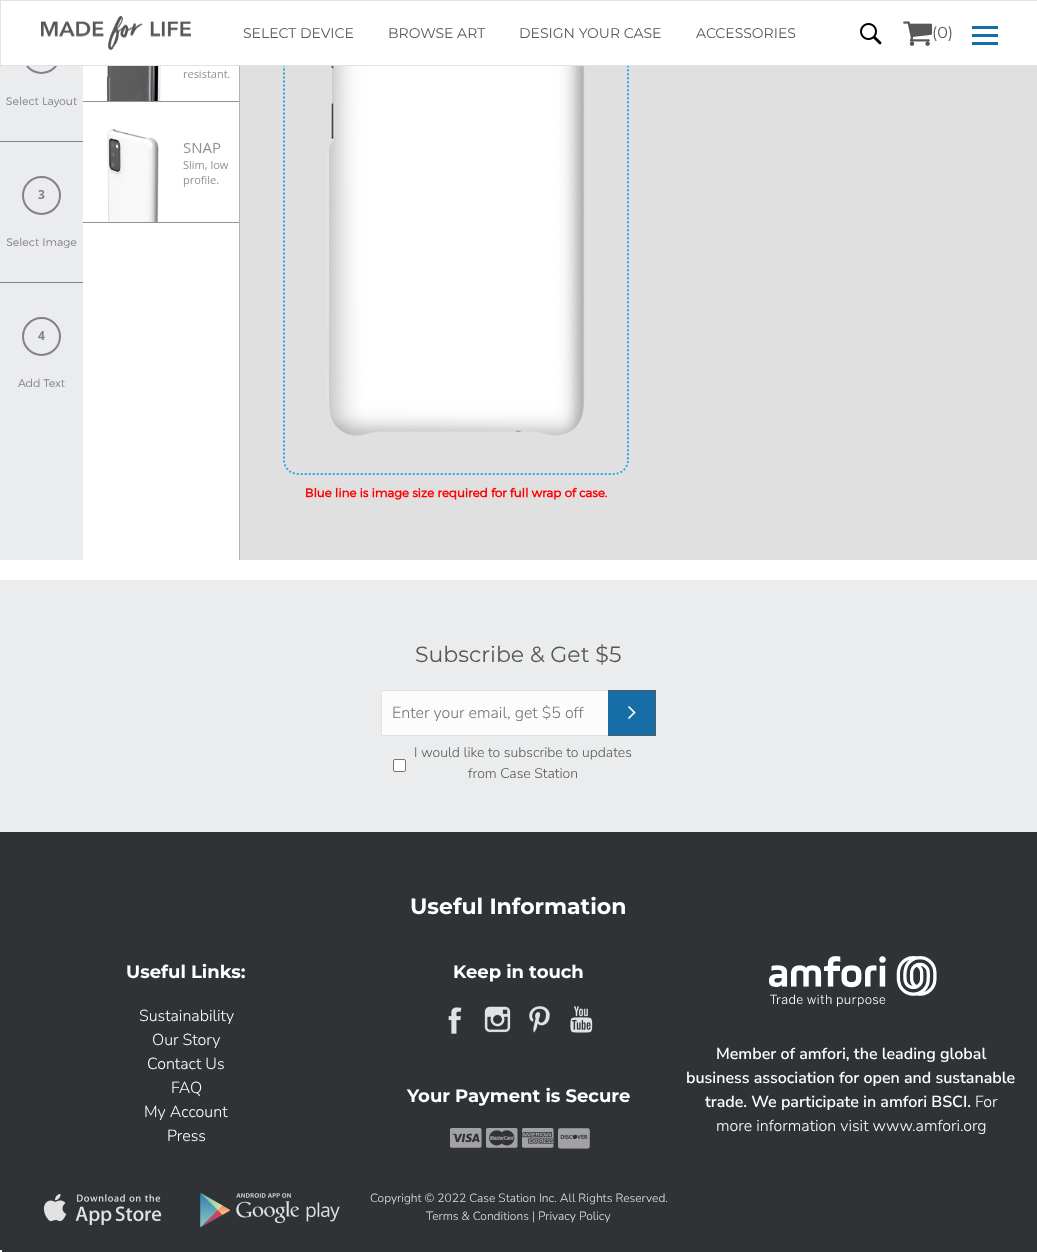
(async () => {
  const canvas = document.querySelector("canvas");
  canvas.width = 1037;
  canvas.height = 1252;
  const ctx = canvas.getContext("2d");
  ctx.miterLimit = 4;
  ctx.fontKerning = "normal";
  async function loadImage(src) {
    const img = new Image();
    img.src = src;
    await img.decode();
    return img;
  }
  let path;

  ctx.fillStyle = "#ffffff";
  ctx.fillRect(0, 0, 1037, 1252);
  ctx.strokeStyle = "#e2e2e2";
  ctx.strokeRect(0.5, 0.5, 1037, 65);
  ctx.drawImage(await loadImage("img/1.png"), 41, 16, 150, 34);
  ctx.drawImage(await loadImage("img/2.png"), 860, 23, 22, 22);
  ctx.drawImage(await loadImage("img/3.png"), 903, 21, 30, 25);
  for (const [x, y, w, h, color] of [
    [972, 26, 26, 3, "#176da5"],
    [972, 34, 26, 3, "#176da5"],
    [972, 42, 26, 3, "#176da5"],
  ]) {
    ctx.fillStyle = color;
    ctx.fillRect(x, y, w, h);
  }
  ctx.drawImage(await loadImage("img/4.png"), 0, 66, 1037, 494);
  ctx.fillStyle = "#ebeced";
  ctx.fillRect(0, 580, 1037, 252);
  ctx.fillStyle = "#fcfcfc";
  ctx.fillRect(382, 691, 226, 44);
  ctx.strokeRect(381.5, 690.5, 249, 45);
  ctx.fillStyle = "#176da5";
  ctx.fillRect(608, 691, 47, 44);
  path = new Path2D("M628.5 706.5L634.5 712.5L628.5 718.5");
  ctx.strokeStyle = "#fffefe";
  ctx.lineWidth = 1.7;
  ctx.stroke(path);
  for (const [x, y, w, h, color] of [
    [608, 690, 48, 1, "#575757"],
    [655, 690, 1, 46, "#575757"],
    [608, 735, 48, 1, "#575757"],
  ]) {
    ctx.fillStyle = color;
    ctx.fillRect(x, y, w, h);
  }
  ctx.fillStyle = "#ffffff";
  ctx.beginPath();
  ctx.roundRect(393.5, 759.5, 12, 12, 1.5);
  ctx.fill();
  ctx.strokeStyle = "#767676";
  ctx.lineWidth = 1;
  ctx.stroke();
  ctx.fillStyle = "#303336";
  ctx.fillRect(0, 832, 1037, 420);
  ctx.drawImage(await loadImage("img/5.png"), 43, 1194, 121, 32);
  ctx.drawImage(await loadImage("img/6.png"), 194, 1188, 146, 40);
  ctx.drawImage(await loadImage("img/7.png"), 448, 1007, 14, 28);
  ctx.drawImage(await loadImage("img/8.png"), 484, 1006, 28, 27);
  ctx.drawImage(await loadImage("img/9.png"), 529, 1006, 21, 27);
  ctx.drawImage(await loadImage("img/10.png"), 569, 1005, 24, 28);
  ctx.drawImage(await loadImage("img/11.png"), 450, 1128, 32, 20);
  ctx.drawImage(await loadImage("img/12.png"), 486, 1128, 32, 20);
  ctx.drawImage(await loadImage("img/13.png"), 522, 1128, 32, 20);
  ctx.drawImage(await loadImage("img/14.png"), 558, 1128, 32, 21);
  ctx.drawImage(await loadImage("img/15.png"), 769, 956, 168, 51);
  ctx.fillStyle = "#f5f5f5";
  ctx.fillRect(0, 1250, 2, 2);
  ctx.font = "14px Montserrat";
  ctx.fillStyle = "#575757";
  for (const [text, x, y] of [
    ["SELECT DEVICE", 243, 38],
    ["BROWSE ART", 388, 38],
    ["DESIGN YOUR CASE", 519, 38],
    ["ACCESSORIES", 696, 38],
  ]) {
    ctx.fillText(text, x, y);
  }
  ctx.font = "16px Montserrat";
  ctx.fillText("(0)", 932, 38);
  ctx.font = "22px Montserrat";
  ctx.fillText("Subscribe & Get $5", 415, 662);
  ctx.font = "300 16px Nunito Sans";
  ctx.fillStyle = "#757575";
  ctx.fillText("Enter your email, get $5 off", 392, 718);
  ctx.font = "300 14px Nunito Sans";
  ctx.fillStyle = "#575757";
  ctx.fillText("I would like to subscribe to updates", 414, 757);
  ctx.fillText("from Case Station", 468, 778);
  ctx.font = "bold 22px Montserrat";
  ctx.fillStyle = "#ffffff";
  ctx.fillText("Useful Information", 410, 914);
  ctx.font = "bold 18px Montserrat";
  ctx.fillText("Useful Links:", 126, 978);
  ctx.font = "300 16px Nunito Sans";
  for (const [text, x, y] of [
    ["Sustainability", 139, 1021],
    ["Our Story", 152, 1045],
    ["Contact Us", 147, 1069],
    ["FAQ", 171, 1093],
    ["My Account", 144, 1117],
    ["Press", 167, 1141],
  ]) {
    ctx.fillText(text, x, y);
  }
  ctx.font = "bold 18px Montserrat";
  ctx.fillText("Keep in touch", 453, 978);
  ctx.fillText("Your Payment is Secure", 407, 1102);
  ctx.font = "300 12px Nunito Sans";
  ctx.fillStyle = "#e2e2e2";
  ctx.fillText("Copyright © 2022 Case Station Inc. All Rights Reserved.", 370, 1202);
  ctx.fillText("Terms & Conditions | Privacy Policy", 426, 1220);
  ctx.font = "600 16px Nunito Sans";
  ctx.fillStyle = "#ffffff";
  for (const [text, x, y] of [
    ["Member of amfori, the leading global", 716, 1059],
    ["business association for open and sustanable", 686, 1083],
    ["trade. We participate in amfori BSCI.", 705, 1107],
  ]) {
    ctx.fillText(text, x, y);
  }
  ctx.font = "300 16px Nunito Sans";
  ctx.fillText("For", 975, 1107);
  ctx.fillText("more information visit www.amfori.org", 716, 1131);
})();
